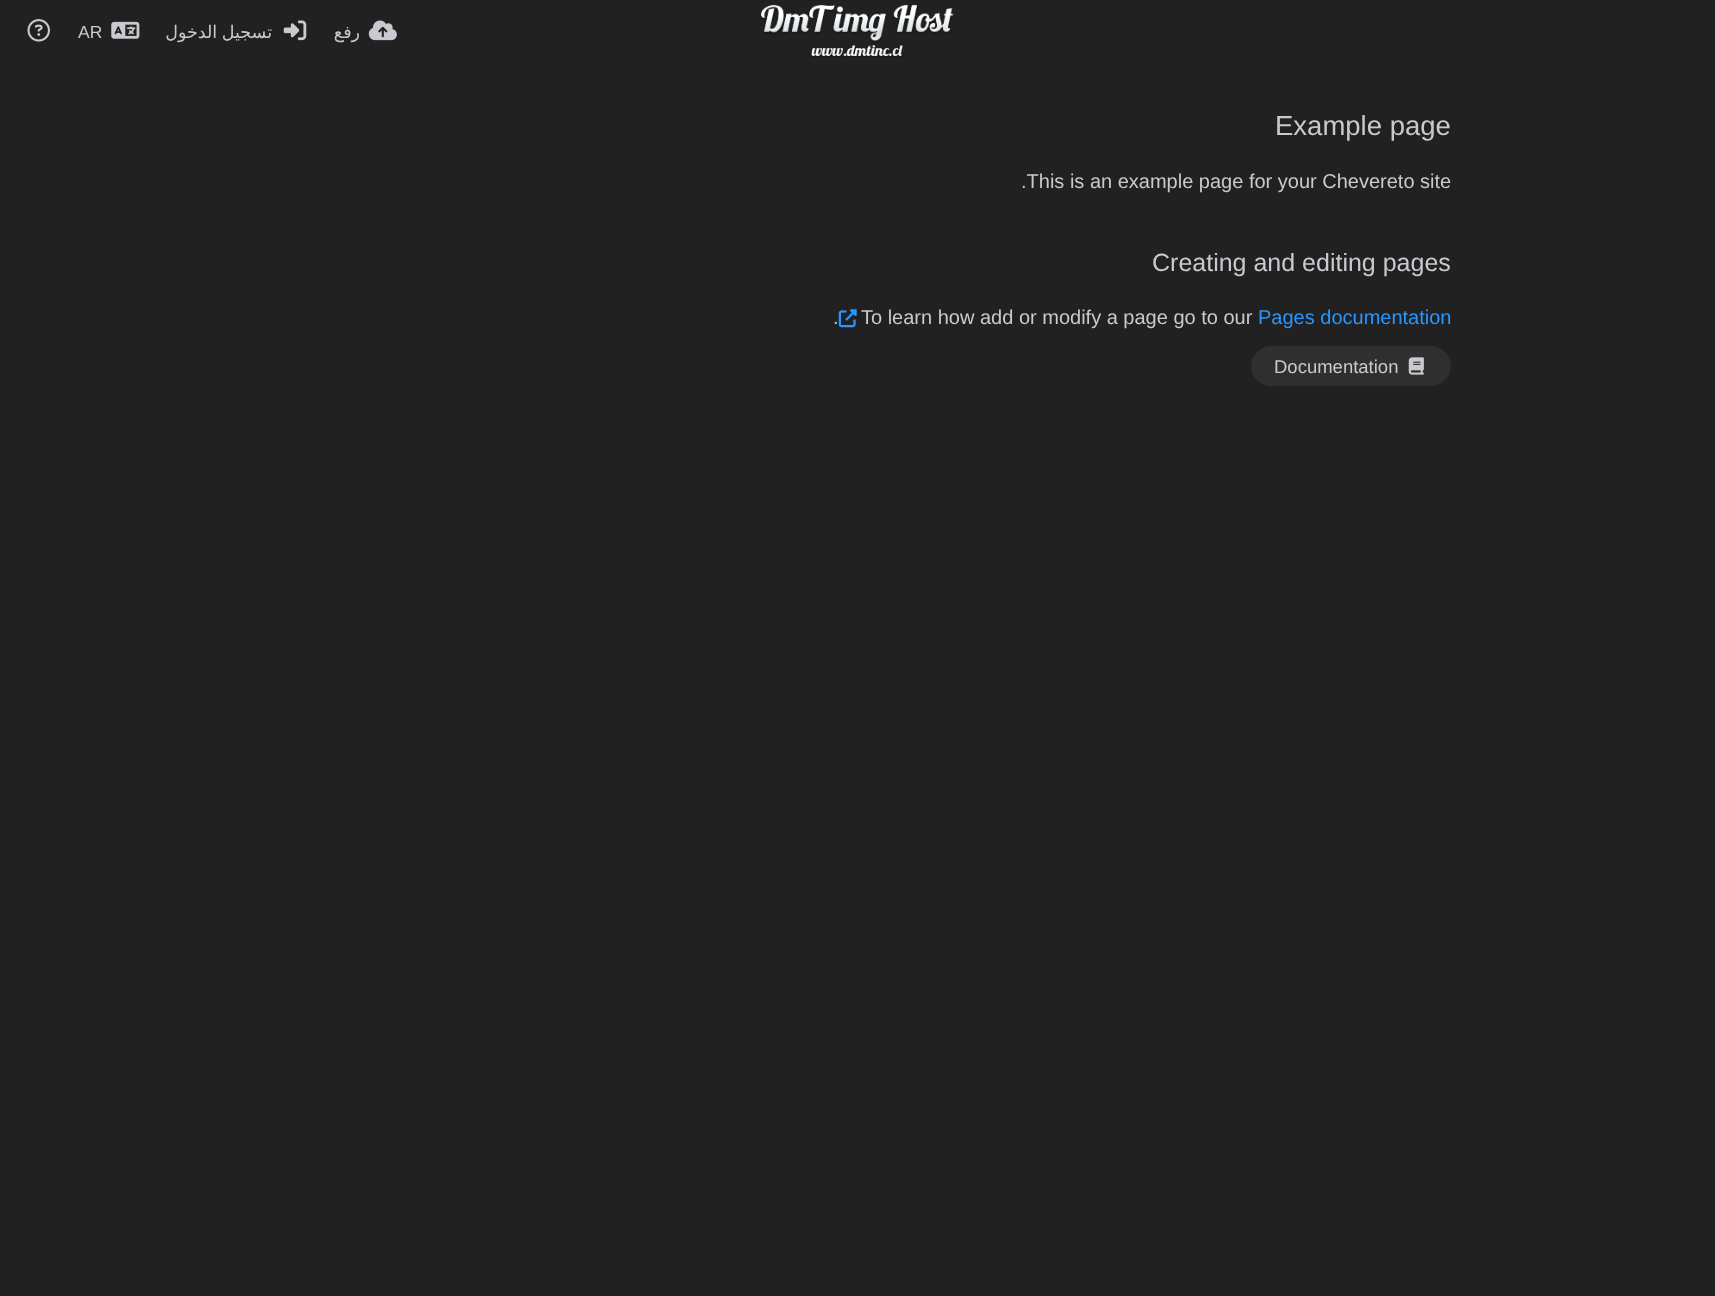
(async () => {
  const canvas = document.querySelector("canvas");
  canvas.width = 1715;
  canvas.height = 1296;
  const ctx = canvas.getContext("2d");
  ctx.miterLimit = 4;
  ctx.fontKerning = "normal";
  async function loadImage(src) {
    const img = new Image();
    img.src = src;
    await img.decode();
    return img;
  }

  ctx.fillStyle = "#212121";
  ctx.fillRect(0, 0, 1715, 1296);
  ctx.drawImage(await loadImage("img/1.png"), 27, 19, 23, 23);
  ctx.drawImage(await loadImage("img/2.png"), 111, 21, 29, 18);
  ctx.drawImage(await loadImage("img/3.png"), 283, 20, 24, 21);
  ctx.drawImage(await loadImage("img/4.png"), 368, 20, 29, 21);
  ctx.drawImage(await loadImage("img/5.png"), 760, 4, 194, 54);
  ctx.drawImage(await loadImage("img/6.png"), 838, 309, 19, 19);
  ctx.fillStyle = "#2f2f2f";
  ctx.beginPath();
  ctx.roundRect(1251.5, 346.5, 199, 39, 19.5);
  ctx.fill();
  ctx.strokeStyle = "#2f2f2f";
  ctx.stroke();
  ctx.drawImage(await loadImage("img/7.png"), 1408, 357, 16, 18);
  ctx.font = "17.5px Liberation Sans";
  ctx.fillStyle = "#cac9cf";
  ctx.fillText("AR", 78, 38);
  ctx.wordSpacing = "-1px";
  ctx.direction = "rtl";
  ctx.font = "17.5px DejaVu Sans";
  ctx.fillText("تسجيل الدخول", 272, 38);
  ctx.wordSpacing = "0px";
  ctx.fillText("رفع", 360, 38);
  ctx.direction = "ltr";
  ctx.font = "27.5px Liberation Sans";
  ctx.fillText("Example page", 1275, 135);
  ctx.font = "20px Liberation Sans";
  ctx.fillText(".This is an example page for your Chevereto site", 1021, 188);
  ctx.font = "25px Liberation Sans";
  ctx.fillText("Creating and editing pages", 1152, 271);
  ctx.font = "20px Liberation Sans";
  ctx.fillText(".", 833, 324);
  ctx.fillText("To learn how add or modify a page go to our", 861, 324);
  ctx.fillStyle = "#2997ff";
  ctx.fillText("Pages documentation", 1258, 324);
  ctx.font = "18.5px Liberation Sans";
  ctx.fillStyle = "#cac9cf";
  ctx.fillText("Documentation", 1274, 373);
})();
